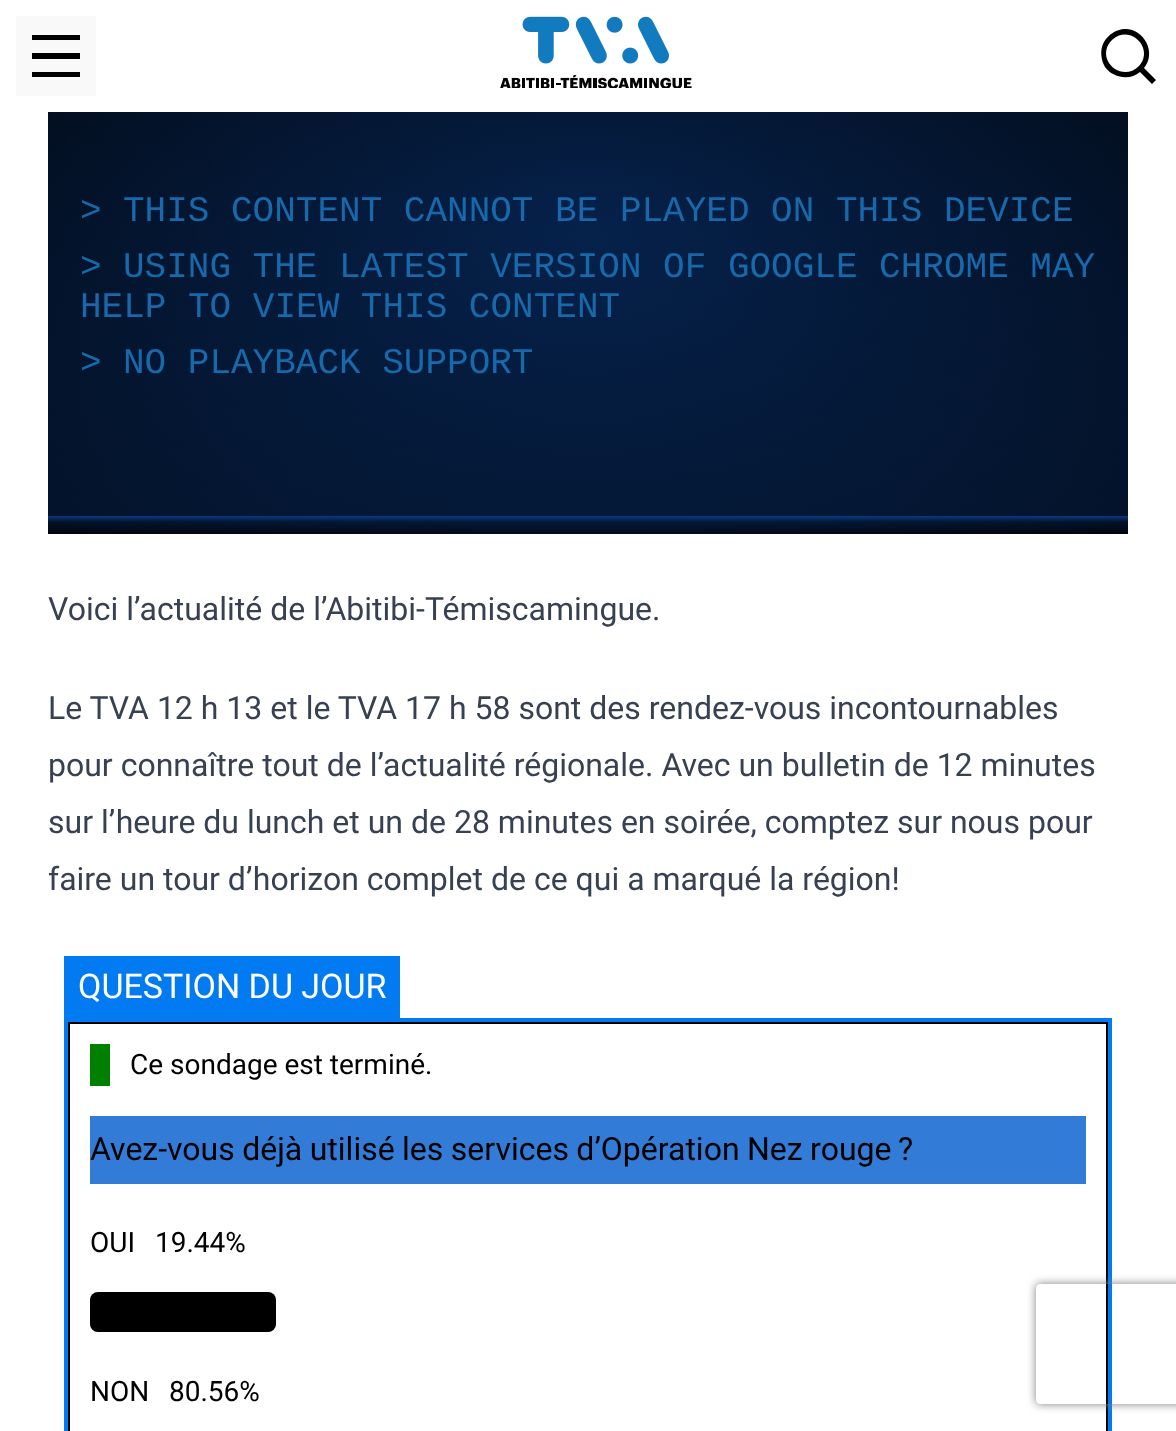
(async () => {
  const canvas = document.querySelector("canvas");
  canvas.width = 1176;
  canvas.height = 1431;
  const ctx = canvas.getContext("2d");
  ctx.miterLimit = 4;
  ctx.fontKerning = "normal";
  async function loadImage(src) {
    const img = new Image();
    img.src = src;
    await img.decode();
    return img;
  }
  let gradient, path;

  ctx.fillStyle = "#ffffff";
  ctx.fillRect(0, 0, 1176, 1431);
  ctx.fillStyle = "#f9f9f9";
  ctx.fillRect(16, 16, 80, 80);
  ctx.fillStyle = "#000000";
  path = new Path2D("M32 35H80V40H32ZM32 53H80V59H32ZM32 72H80V77H32Z");
  ctx.fill(path);
  ctx.drawImage(await loadImage("img/1.png"), 500, 16, 192, 72);
  path = new Path2D("M1144 68L1156 80L1152 84L1140 72C1130 81 1113 78 1105 67C1101 60 1100 51 1103 44C1106 38 1110 34 1116 31C1139 21 1159 50 1144 68ZM1139 66C1155 49 1130 23 1112 40C1094 58 1121 84 1139 66Z");
  ctx.fill(path);
  gradient = ctx.createRadialGradient(588, 408.65, 0, 588, 408.65, 764);
  gradient.addColorStop(0, "#051d41");
  gradient.addColorStop(1, "#01050b");
  ctx.fillStyle = gradient;
  ctx.beginPath();
  ctx.rect(48, 112, 1080, 422);
  ctx.save();
  ctx.clip();
  ctx.scale(1, 430 / 764);
  ctx.fillRect(0, 0, 1176, 2543);
  ctx.restore();
  gradient = ctx.createLinearGradient(588, 534, 588, -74);
  gradient.addColorStop(0, "rgba(13, 71, 161, 0)");
  gradient.addColorStop(0.02, "rgba(13, 71, 161, 0.2)");
  gradient.addColorStop(0.03, "rgba(13, 71, 161, 0.8)");
  gradient.addColorStop(0.03, "rgba(13, 71, 161, 0.2)");
  gradient.addColorStop(1, "rgba(13, 71, 161, 0)");
  ctx.fillStyle = gradient;
  ctx.fillRect(48, 112, 1080, 421);
  ctx.fillStyle = "#027af1";
  ctx.fillRect(64, 956, 336, 62);
  ctx.strokeStyle = "#027af1";
  ctx.lineWidth = 4;
  ctx.strokeRect(66, 1020, 1044, 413);
  ctx.strokeStyle = "#000000";
  ctx.lineWidth = 2;
  ctx.strokeRect(69, 1023, 1038, 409);
  ctx.fillStyle = "#008000";
  ctx.fillRect(90, 1044, 20, 42);
  ctx.fillStyle = "#327bd6";
  ctx.fillRect(90, 1116, 996, 68);
  ctx.fillStyle = "#000000";
  ctx.beginPath();
  ctx.roundRect(90, 1292, 186, 40, 8);
  ctx.fill();
  ctx.fillStyle = "rgba(0, 0, 0, 0.15)";
  path = new Path2D("M90 1322V1324C90 1328 94 1332 98 1332H268C272 1332 276 1328 276 1324V1322C276 1326 272 1330 268 1330H98C94 1330 90 1326 90 1322Z");
  ctx.fill(path);
  ctx.save();
  path = new Path2D("M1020 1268H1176V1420H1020ZM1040 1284H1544C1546 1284 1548 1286 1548 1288V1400C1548 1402 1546 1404 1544 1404H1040C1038 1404 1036 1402 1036 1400V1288C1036 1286 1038 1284 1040 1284Z");
  ctx.clip(path, "evenodd");
  ctx.fillStyle = "#808080";
  ctx.filter = "blur(5px)";
  ctx.beginPath();
  ctx.roundRect(1036, 1284, 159, 120, 4);
  ctx.fill();
  ctx.filter = "none";
  ctx.restore();
  ctx.font = "36px Liberation Mono";
  ctx.fillStyle = "#1769ab";
  for (const [text, x, y] of [
    [">", 80, 221],
    ["THIS CONTENT CANNOT BE PLAYED ON THIS DEVICE", 123, 221],
    [">", 80, 277],
    ["USING THE LATEST VERSION OF GOOGLE CHROME MAY", 123, 277],
    ["HELP TO VIEW THIS CONTENT", 80, 317],
    [">", 80, 373],
    ["NO PLAYBACK SUPPORT", 123, 373],
  ]) {
    ctx.fillText(text, x, y);
  }
  ctx.font = "32px Roboto";
  ctx.fillStyle = "#374151";
  for (const [text, x, y] of [
    ["Voici l’actualité de l’Abitibi-Témiscamingue.", 48, 620],
    ["Le TVA 12 h 13 et le TVA 17 h 58 sont des rendez-vous incontournables", 48, 719],
    ["pour connaître tout de l’actualité régionale. Avec un bulletin de 12 minutes", 48, 776],
    ["sur l’heure du lunch et un de 28 minutes en soirée, comptez sur nous pour", 48, 833],
    ["faire un tour d’horizon complet de ce qui a marqué la région!", 48, 890],
  ]) {
    ctx.fillText(text, x, y);
  }
  ctx.font = "34px Roboto";
  ctx.fillStyle = "#ffffff";
  ctx.fillText("QUESTION DU JOUR", 78, 998);
  ctx.font = "28px Roboto";
  ctx.fillStyle = "#000000";
  ctx.fillText("Ce sondage est terminé.", 130, 1074);
  ctx.wordSpacing = "-0.5px";
  ctx.font = "32px Roboto";
  ctx.fillText("Avez-vous déjà utilisé les services d’Opération Nez rouge ?", 90, 1160);
  ctx.wordSpacing = "0px";
  ctx.font = "28px Roboto";
  for (const [text, x, y] of [
    ["OUI", 90, 1252],
    ["19.44%", 155, 1252],
    ["NON", 90, 1401],
    ["80.56%", 169, 1401],
  ]) {
    ctx.fillText(text, x, y);
  }
})();
